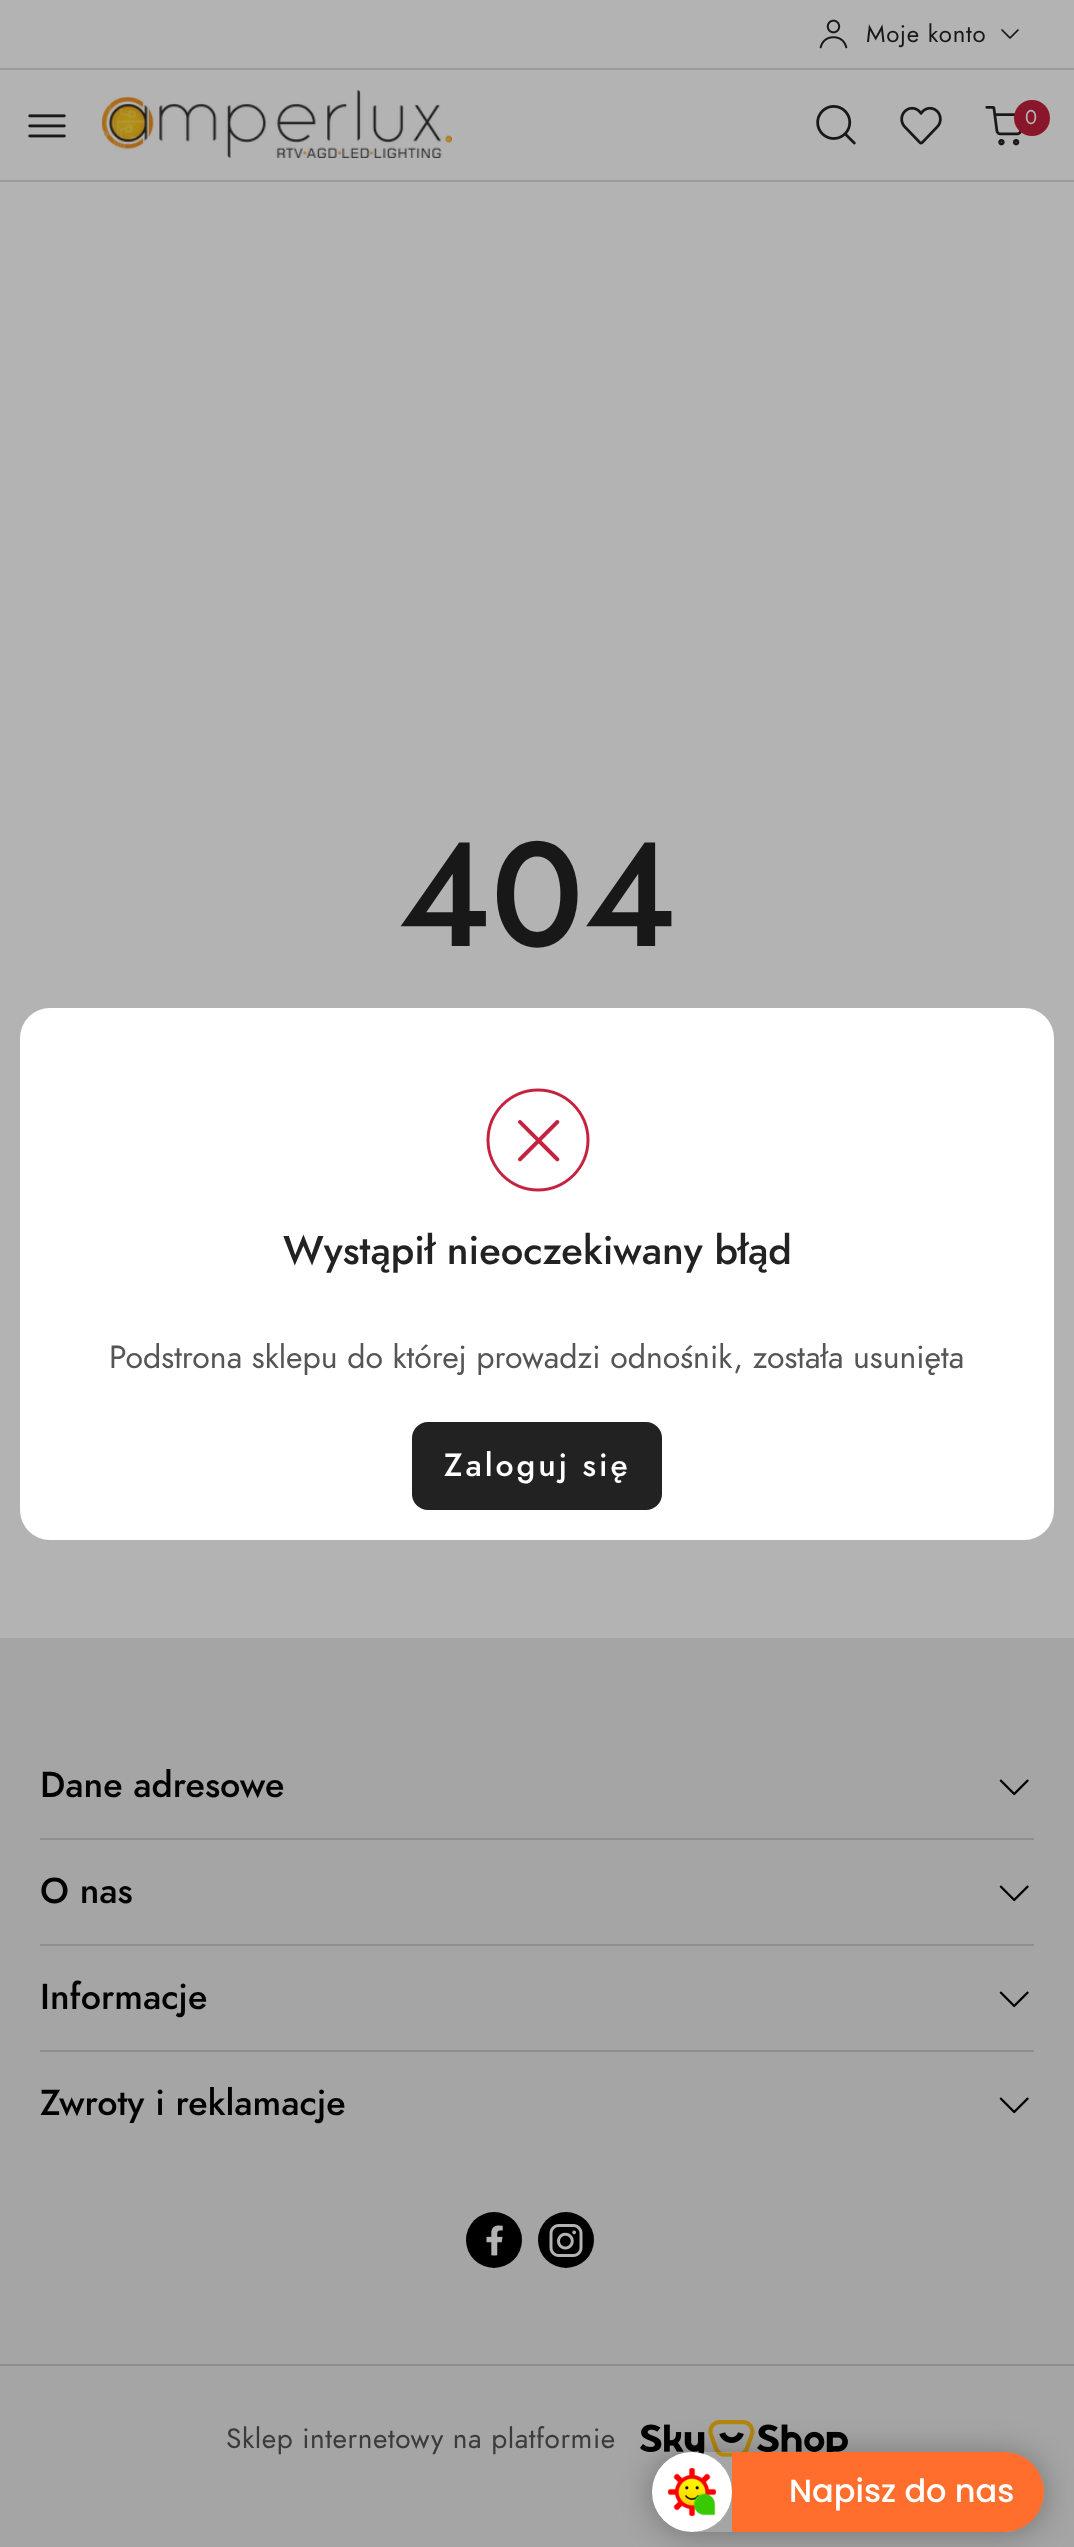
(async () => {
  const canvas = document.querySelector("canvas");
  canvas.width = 1074;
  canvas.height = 2547;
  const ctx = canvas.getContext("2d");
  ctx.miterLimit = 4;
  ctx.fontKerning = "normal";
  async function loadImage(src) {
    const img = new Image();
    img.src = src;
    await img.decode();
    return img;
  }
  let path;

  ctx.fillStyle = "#b3b3b3";
  ctx.fillRect(0, 0, 1074, 2547);
  ctx.drawImage(await loadImage("img/1.png"), 819, 19, 29, 30);
  ctx.drawImage(await loadImage("img/2.png"), 1001, 29, 18, 10);
  ctx.fillStyle = "#9b9b9b";
  ctx.fillRect(0, 68, 1074, 2);
  ctx.drawImage(await loadImage("img/3.png"), 28, 114, 38, 24);
  ctx.drawImage(await loadImage("img/4.png"), 102, 90, 350, 68);
  ctx.drawImage(await loadImage("img/5.png"), 816, 105, 40, 40);
  ctx.drawImage(await loadImage("img/6.png"), 900, 106, 42, 39);
  ctx.drawImage(await loadImage("img/7.png"), 985, 106, 37, 40);
  ctx.fillStyle = "#8a162b";
  ctx.beginPath();
  ctx.arc(1032, 118, 18, 0, Math.PI * 2);
  ctx.fill();
  for (const [x, y, w, h, color] of [
    [0, 180, 1074, 2, "#9b9b9b"],
    [0, 1638, 1074, 909, "#a5a5a5"],
    [40, 1838, 994, 2, "#8f8f8f"],
  ]) {
    ctx.fillStyle = color;
    ctx.fillRect(x, y, w, h);
  }
  ctx.drawImage(await loadImage("img/8.png"), 999, 1779, 30, 17);
  ctx.fillRect(40, 1944, 994, 2);
  ctx.drawImage(await loadImage("img/8.png"), 999, 1885, 30, 17);
  ctx.fillRect(40, 2050, 994, 2);
  ctx.drawImage(await loadImage("img/8.png"), 999, 1991, 30, 17);
  ctx.drawImage(await loadImage("img/8.png"), 999, 2097, 30, 17);
  ctx.fillStyle = "#000000";
  ctx.beginPath();
  ctx.arc(494, 2240, 28, 0, Math.PI * 2);
  ctx.fill();
  ctx.drawImage(await loadImage("img/9.png"), 486, 2225, 17, 31);
  ctx.beginPath();
  ctx.arc(566, 2240, 28, 0, Math.PI * 2);
  ctx.fill();
  ctx.drawImage(await loadImage("img/10.png"), 549, 2224, 34, 33);
  ctx.fillStyle = "#8f8f8f";
  ctx.fillRect(0, 2364, 1074, 2);
  ctx.drawImage(await loadImage("img/11.png"), 640, 2420, 208, 37);
  ctx.fillStyle = "#ffffff";
  ctx.beginPath();
  ctx.roundRect(20, 1008, 1034, 532, 30);
  ctx.fill();
  ctx.drawImage(await loadImage("img/12.png"), 486, 1088, 104, 104);
  ctx.fillStyle = "#222222";
  ctx.beginPath();
  ctx.roundRect(412, 1422, 250, 88, 16);
  ctx.fill();
  ctx.save();
  path = new Path2D("M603 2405H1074V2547H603ZM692 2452H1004C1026 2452 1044 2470 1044 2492C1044 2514 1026 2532 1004 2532H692C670 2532 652 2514 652 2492C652 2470 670 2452 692 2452Z");
  ctx.clip(path, "evenodd");
  ctx.fillStyle = "rgba(0, 0, 0, 0.3)";
  ctx.filter = "blur(16px)";
  ctx.beginPath();
  ctx.roundRect(652, 2454, 392, 80, 40);
  ctx.fill();
  ctx.filter = "none";
  ctx.restore();
  ctx.fillStyle = "#ffffff";
  ctx.beginPath();
  ctx.arc(692, 2492, 40, 0, Math.PI * 2);
  ctx.fill();
  ctx.drawImage(await loadImage("img/13.png"), 668, 2468, 48, 48);
  ctx.fillStyle = "#ff6e2c";
  ctx.beginPath();
  ctx.roundRect(732, 2452, 312, 80, [0, 40, 40, 0]);
  ctx.fill();
  ctx.letterSpacing = "0.75px";
  ctx.font = "24px Jost";
  ctx.fillStyle = "#181818";
  ctx.fillText("Moje konto", 866, 42);
  ctx.letterSpacing = "0px";
  ctx.font = "20px Jost";
  ctx.fillStyle = "#b3b3b3";
  ctx.fillText("0", 1025, 124);
  ctx.font = "500 148px Jost";
  ctx.fillStyle = "#181818";
  ctx.fillText("404", 398, 946);
  ctx.font = "500 36px Jost";
  ctx.fillStyle = "#020202";
  for (const [text, x, y] of [
    ["Dane adresowe", 40, 1797],
    ["O nas", 40, 1903],
    ["Informacje", 40, 2009],
    ["Zwroty i reklamacje", 40, 2115],
  ]) {
    ctx.fillText(text, x, y);
  }
  ctx.letterSpacing = "0.55px";
  ctx.font = "28px Jost";
  ctx.fillStyle = "#3b3b3b";
  ctx.fillText("Sklep internetowy na platformie", 226, 2448);
  ctx.letterSpacing = "0px";
  ctx.font = "500 40px Jost";
  ctx.fillStyle = "#222222";
  ctx.fillText("Wystąpił nieoczekiwany błąd", 283, 1264);
  ctx.font = "32px Jost";
  ctx.fillStyle = "#555555";
  ctx.fillText("Podstrona sklepu do której prowadzi odnośnik, została usunięta", 109, 1368);
  ctx.letterSpacing = "3px";
  ctx.font = "500 32px Jost";
  ctx.fillStyle = "#ffffff";
  ctx.fillText("Zaloguj się", 444, 1476);
  ctx.letterSpacing = "0px";
  ctx.font = "500 32px Poppins";
  ctx.fillText("Napisz do nas", 789, 2502);
})();
